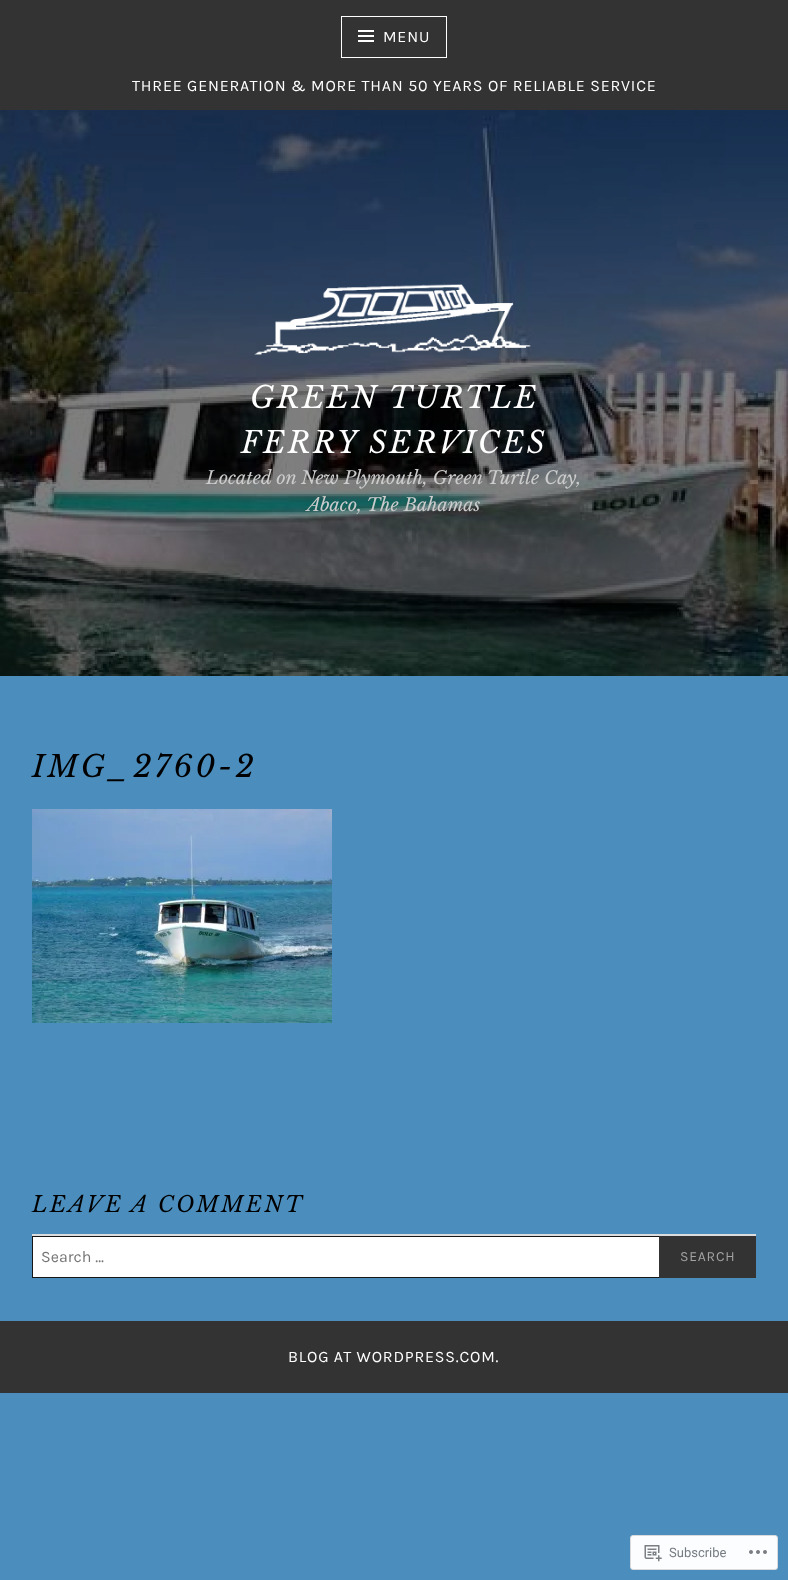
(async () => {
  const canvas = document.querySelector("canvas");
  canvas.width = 788;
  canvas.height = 1580;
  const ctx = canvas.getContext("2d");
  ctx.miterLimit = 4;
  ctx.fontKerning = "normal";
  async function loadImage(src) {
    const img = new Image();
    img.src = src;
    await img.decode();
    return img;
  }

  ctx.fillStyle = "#4b8ebe";
  ctx.fillRect(0, 0, 788, 1580);
  ctx.fillStyle = "#333333";
  ctx.fillRect(0, 0, 788, 110);
  ctx.strokeStyle = "#ffffff";
  ctx.strokeRect(341.5, 16.5, 105, 41);
  ctx.drawImage(await loadImage("img/1.png"), 358, 30, 16, 12);
  ctx.drawImage(await loadImage("img/2.png"), 0, 110, 788, 566);
  ctx.drawImage(await loadImage("img/3.png"), 254, 284, 277, 71);
  ctx.drawImage(await loadImage("img/4.png"), 32, 809, 300, 214);
  ctx.fillStyle = "#dcdcde";
  ctx.fillRect(32, 1234, 724, 2);
  ctx.fillStyle = "#ffffff";
  ctx.fillRect(33, 1237, 626, 40);
  ctx.strokeStyle = "#161616";
  ctx.strokeRect(32.5, 1236.5, 723, 41);
  ctx.fillStyle = "#333333";
  ctx.fillRect(659, 1236, 97, 42);
  ctx.fillRect(0, 1321, 788, 72);
  ctx.fillStyle = "#fbfdfe";
  ctx.beginPath();
  ctx.roundRect(630.5, 1535.5, 147, 34, 2.5);
  ctx.fill();
  ctx.strokeStyle = "#d9dadd";
  ctx.stroke();
  ctx.drawImage(await loadImage("img/5.png"), 644, 1545, 18, 17);
  ctx.drawImage(await loadImage("img/6.png"), 749, 1550, 18, 4);
  ctx.letterSpacing = "0.8px";
  ctx.font = "16px Karla";
  ctx.fillStyle = "#ffffff";
  ctx.fillText("MENU", 383, 42);
  ctx.fillText("THREE GENERATION & MORE THAN 50 YEARS OF RELIABLE SERVICE", 132, 91);
  ctx.letterSpacing = "2.4px";
  ctx.font = "italic 30px Libre Baskerville";
  ctx.fillText("GREEN TURTLE", 250, 408);
  ctx.fillText("FERRY SERVICES", 241, 453);
  ctx.letterSpacing = "0px";
  ctx.font = "italic 18px Libre Baskerville";
  ctx.fillStyle = "#cccccc";
  ctx.fillText("Located on New Plymouth, Green Turtle Cay,", 206, 484);
  ctx.fillText("Abaco, The Bahamas", 307, 511);
  ctx.letterSpacing = "3px";
  ctx.font = "italic 30px Libre Baskerville";
  ctx.fillStyle = "#000000";
  ctx.fillText("IMG_2760-2", 32, 777);
  ctx.letterSpacing = "2.25px";
  ctx.font = "italic 22px Libre Baskerville";
  ctx.fillText("LEAVE A COMMENT", 32, 1212);
  ctx.letterSpacing = "0px";
  ctx.font = "16px Karla";
  ctx.fillStyle = "#757575";
  ctx.fillText("Search …", 41, 1262);
  ctx.letterSpacing = "0.75px";
  ctx.font = "14px Karla";
  ctx.fillStyle = "#a3a3a3";
  ctx.fillText("SEARCH", 680, 1261);
  ctx.letterSpacing = "0.8px";
  ctx.font = "16px Karla";
  ctx.fillStyle = "#ffffff";
  ctx.fillText("BLOG AT WORDPRESS.COM.", 288, 1362);
  ctx.letterSpacing = "0px";
  ctx.font = "13px Roboto";
  ctx.fillStyle = "#777c83";
  ctx.fillText("Subscribe", 669, 1557);
})();
